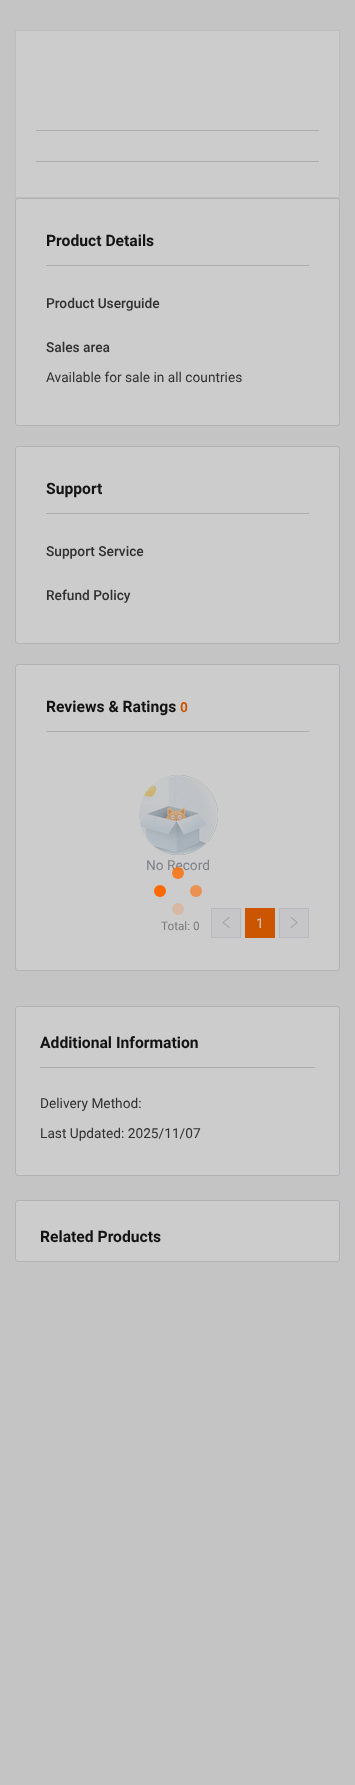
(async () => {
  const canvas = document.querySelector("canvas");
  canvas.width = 355;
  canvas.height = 1785;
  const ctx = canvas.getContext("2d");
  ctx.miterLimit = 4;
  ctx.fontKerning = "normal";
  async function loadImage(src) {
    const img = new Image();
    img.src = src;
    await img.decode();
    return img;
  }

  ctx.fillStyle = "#c4c4c5";
  ctx.fillRect(0, 0, 355, 1785);
  ctx.fillStyle = "#cccccc";
  ctx.beginPath();
  ctx.rect(15.5, 30.5, 324, 167);
  ctx.fill();
  ctx.strokeStyle = "#bcbdbd";
  ctx.stroke();
  ctx.fillStyle = "#acadae";
  ctx.fillRect(36, 130, 283, 1);
  ctx.fillRect(36, 161, 283, 1);
  ctx.fillStyle = "#cccccc";
  ctx.beginPath();
  ctx.roundRect(15.5, 198.5, 324, 227, 2.5);
  ctx.fill();
  ctx.strokeStyle = "#b0b2b6";
  ctx.stroke();
  ctx.fillStyle = "#adadad";
  ctx.fillRect(46, 265, 263, 1);
  ctx.fillStyle = "#cccccc";
  ctx.beginPath();
  ctx.roundRect(15.5, 446.5, 324, 197, 2.5);
  ctx.fill();
  ctx.stroke();
  ctx.fillStyle = "#adadad";
  ctx.fillRect(46, 513, 263, 1);
  ctx.fillStyle = "#cccccc";
  ctx.beginPath();
  ctx.roundRect(15.5, 664.5, 324, 306, 2.5);
  ctx.fill();
  ctx.stroke();
  ctx.fillStyle = "#adadad";
  ctx.fillRect(46, 731, 263, 1);
  ctx.drawImage(await loadImage("img/1.png"), 139, 775, 79, 80);
  ctx.fillStyle = "#c6c6c8";
  ctx.beginPath();
  ctx.rect(211.5, 908.5, 29, 29);
  ctx.fill();
  ctx.strokeStyle = "#b8b9bc";
  ctx.stroke();
  ctx.drawImage(await loadImage("img/2.png"), 222, 917, 8, 11);
  ctx.fillStyle = "#cc5500";
  ctx.fillRect(245, 908, 30, 30);
  ctx.fillStyle = "#c6c6c8";
  ctx.beginPath();
  ctx.rect(279.5, 908.5, 29, 29);
  ctx.fill();
  ctx.stroke();
  ctx.drawImage(await loadImage("img/3.png"), 290, 917, 8, 11);
  ctx.fillStyle = "#cccccc";
  ctx.beginPath();
  ctx.roundRect(15.5, 1006.5, 324, 169, 2.5);
  ctx.fill();
  ctx.strokeStyle = "#b0b2b6";
  ctx.stroke();
  ctx.fillStyle = "#adadad";
  ctx.fillRect(40, 1067, 275, 1);
  ctx.fillStyle = "#cccccc";
  ctx.beginPath();
  ctx.roundRect(15.5, 1200.5, 324, 61, 2.5);
  ctx.fill();
  ctx.stroke();
  ctx.fillStyle = "#ff6a00";
  ctx.beginPath();
  ctx.arc(160, 891, 6, 0, Math.PI * 2);
  ctx.fill();
  ctx.fillStyle = "#eb9152";
  ctx.beginPath();
  ctx.arc(196, 891, 6, 0, Math.PI * 2);
  ctx.fill();
  ctx.fillStyle = "#d6b8a3";
  ctx.beginPath();
  ctx.arc(178, 909, 6, 0, Math.PI * 2);
  ctx.fill();
  ctx.font = "bold 16px Roboto";
  ctx.fillStyle = "#131313";
  ctx.fillText("Product Details", 46, 246);
  ctx.font = "500 14px Roboto";
  ctx.fillStyle = "#313131";
  ctx.fillText("Product Userguide", 46, 308);
  ctx.fillText("Sales area", 46, 352);
  ctx.font = "14px Roboto";
  ctx.fillText("Available for sale in all countries", 46, 382);
  ctx.font = "bold 16px Roboto";
  ctx.fillStyle = "#131313";
  ctx.fillText("Support", 46, 494);
  ctx.font = "500 14px Roboto";
  ctx.fillStyle = "#313131";
  ctx.fillText("Support Service", 46, 556);
  ctx.fillText("Refund Policy", 46, 600);
  ctx.font = "bold 16px Roboto";
  ctx.fillStyle = "#131313";
  ctx.fillText("Reviews & Ratings", 46, 712);
  ctx.font = "bold 14px Roboto";
  ctx.fillStyle = "#cc5500";
  ctx.fillText("0", 180, 712);
  ctx.font = "14px Roboto";
  ctx.fillStyle = "#80828a";
  ctx.fillText("No Record", 146, 870);
  ctx.font = "12px Roboto";
  ctx.fillStyle = "#7a7a7a";
  ctx.fillText("Total: 0", 161, 930);
  ctx.font = "14px Roboto";
  ctx.fillStyle = "#cccccc";
  ctx.fillText("1", 256, 928);
  ctx.font = "bold 16px Roboto";
  ctx.fillStyle = "#131313";
  ctx.fillText("Additional Information", 40, 1048);
  ctx.font = "14px Roboto";
  ctx.fillStyle = "#313131";
  ctx.fillText("Delivery Method:", 40, 1108);
  ctx.fillText("Last Updated: 2025/11/07", 40, 1138);
  ctx.font = "bold 16px Roboto";
  ctx.fillStyle = "#131313";
  ctx.fillText("Related Products", 40, 1242);
  ctx.fillStyle = "rgba(255, 106, 0, 0.8)";
  ctx.beginPath();
  ctx.arc(178, 873, 6, 0, Math.PI * 2);
  ctx.fill();
})();
